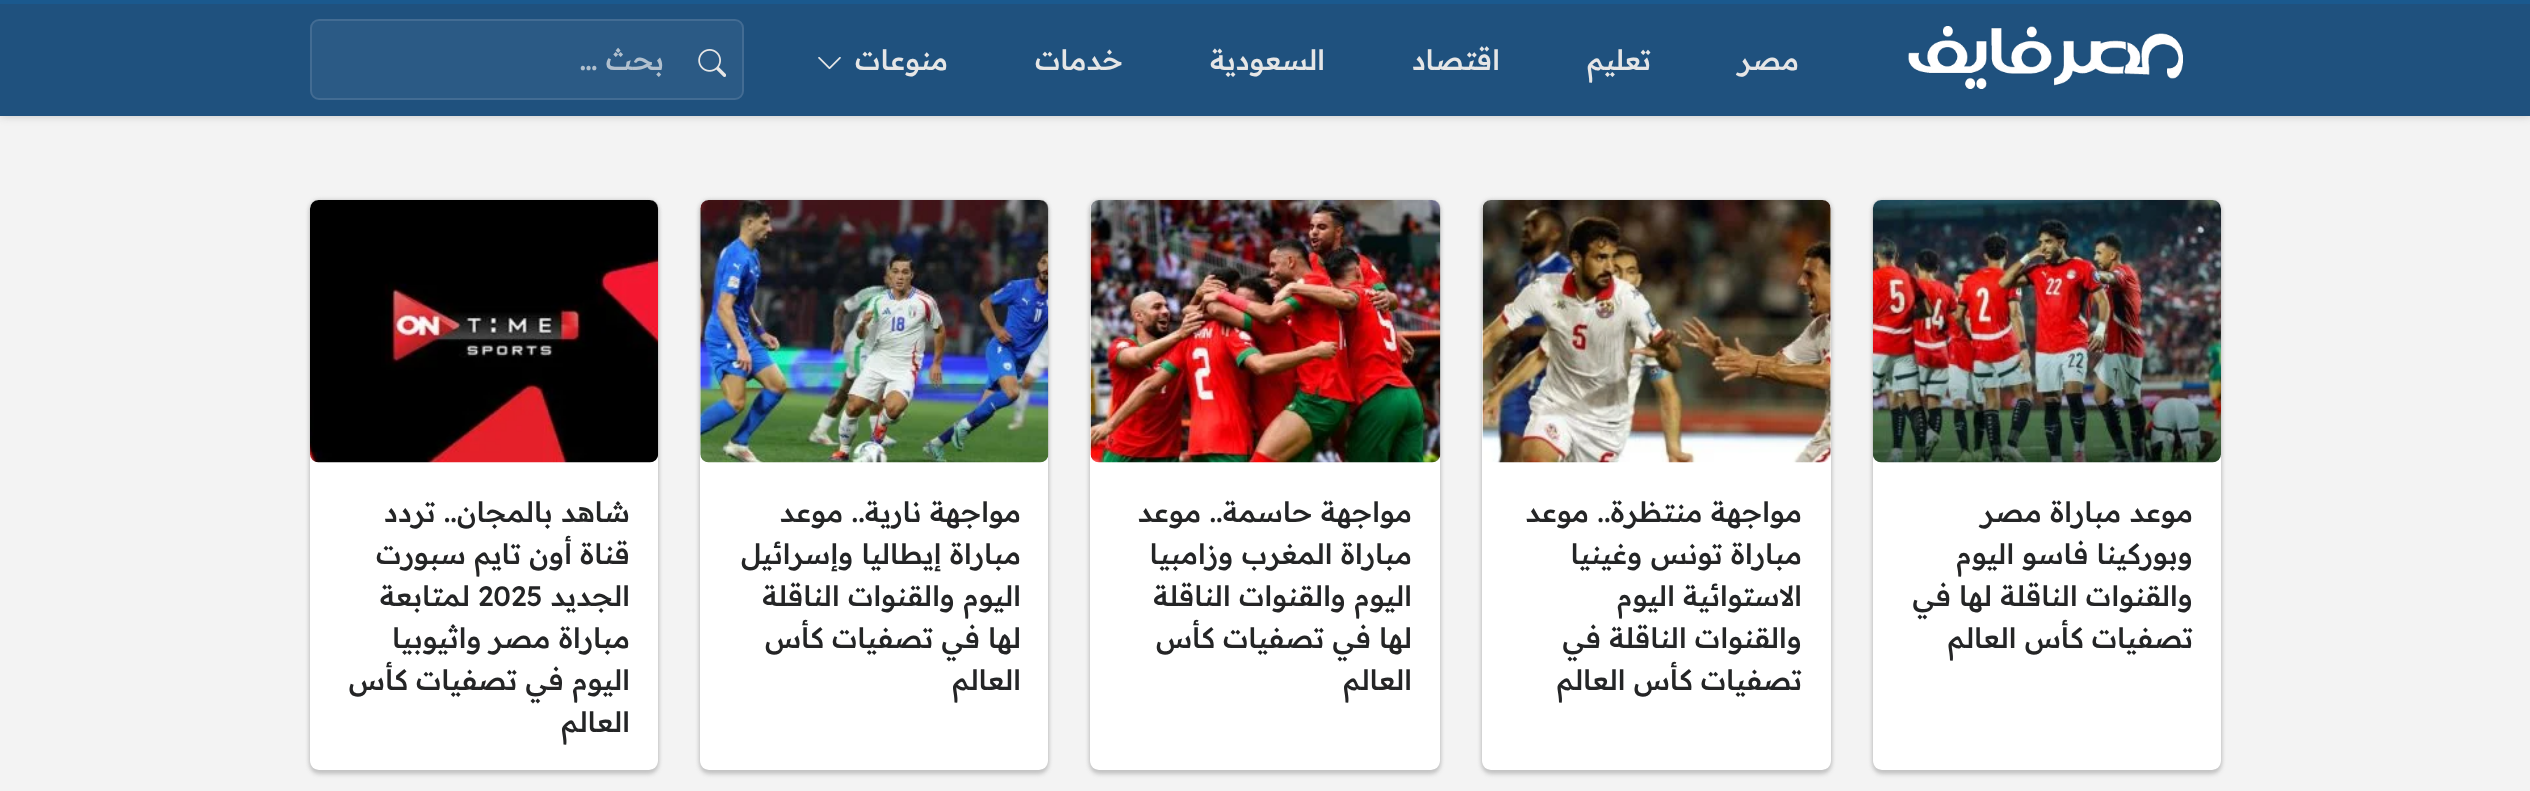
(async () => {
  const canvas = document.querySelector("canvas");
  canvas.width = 2530;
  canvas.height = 791;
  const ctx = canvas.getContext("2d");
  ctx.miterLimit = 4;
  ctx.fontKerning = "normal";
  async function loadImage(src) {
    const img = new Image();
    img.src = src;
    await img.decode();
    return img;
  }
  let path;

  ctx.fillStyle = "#f3f3f3";
  ctx.fillRect(0, 0, 2530, 791);
  ctx.fillStyle = "#c3c3c3";
  ctx.filter = "blur(4.5px)";
  ctx.beginPath();
  ctx.rect(0, 0, 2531, 116);
  ctx.fill();
  ctx.filter = "none";
  ctx.fillStyle = "#1a598e";
  ctx.fillRect(0, 0, 2530, 4);
  ctx.fillStyle = "#1f517e";
  ctx.fillRect(0, 4, 2530, 112);
  ctx.drawImage(await loadImage("img/1.png"), 1908, 26, 275, 63);
  ctx.drawImage(await loadImage("img/2.png"), 818, 57, 23, 13);
  ctx.fillStyle = "#2b5a85";
  ctx.beginPath();
  ctx.roundRect(311, 20, 432, 79, 8);
  ctx.fill();
  ctx.strokeStyle = "#436c93";
  ctx.lineWidth = 2;
  ctx.stroke();
  ctx.drawImage(await loadImage("img/3.png"), 698, 49, 28, 28);
  ctx.fillStyle = "#ffffff";
  ctx.beginPath();
  ctx.roundRect(1873, 200, 348, 570, 9);
  ctx.fill();
  ctx.drawImage(await loadImage("img/4.png"), 1872, 200, 349, 263);
  ctx.save();
  path = new Path2D("M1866 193H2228V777H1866ZM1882 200H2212C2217 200 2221 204 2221 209V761C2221 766 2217 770 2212 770H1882C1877 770 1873 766 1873 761V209C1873 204 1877 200 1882 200Z");
  ctx.clip(path, "evenodd");
  ctx.fillStyle = "#c3c3c3";
  ctx.filter = "blur(2px)";
  ctx.beginPath();
  ctx.roundRect(1873, 200, 348, 570, 9);
  ctx.fill();
  ctx.filter = "none";
  ctx.restore();
  ctx.save();
  path = new Path2D("M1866 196H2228V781H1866ZM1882 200H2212C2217 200 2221 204 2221 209V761C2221 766 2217 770 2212 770H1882C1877 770 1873 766 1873 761V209C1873 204 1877 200 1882 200Z");
  ctx.clip(path, "evenodd");
  ctx.fillStyle = "#c3c3c3";
  ctx.filter = "blur(2px)";
  ctx.beginPath();
  ctx.roundRect(1873, 203, 348, 571, 9);
  ctx.fill();
  ctx.filter = "none";
  ctx.restore();
  ctx.beginPath();
  ctx.roundRect(1482, 200, 349, 570, 9);
  ctx.fill();
  ctx.drawImage(await loadImage("img/5.png"), 1482, 200, 349, 263);
  ctx.save();
  path = new Path2D("M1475 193H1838V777H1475ZM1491 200H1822C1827 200 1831 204 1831 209V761C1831 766 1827 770 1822 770H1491C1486 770 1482 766 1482 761V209C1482 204 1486 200 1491 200Z");
  ctx.clip(path, "evenodd");
  ctx.fillStyle = "#c3c3c3";
  ctx.filter = "blur(2px)";
  ctx.beginPath();
  ctx.roundRect(1482, 200, 349, 570, 9);
  ctx.fill();
  ctx.filter = "none";
  ctx.restore();
  ctx.save();
  path = new Path2D("M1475 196H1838V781H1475ZM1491 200H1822C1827 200 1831 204 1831 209V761C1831 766 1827 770 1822 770H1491C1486 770 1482 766 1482 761V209C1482 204 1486 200 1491 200Z");
  ctx.clip(path, "evenodd");
  ctx.fillStyle = "#c3c3c3";
  ctx.filter = "blur(2px)";
  ctx.beginPath();
  ctx.roundRect(1482, 203, 349, 571, 9);
  ctx.fill();
  ctx.filter = "none";
  ctx.restore();
  ctx.beginPath();
  ctx.roundRect(1090, 200, 350, 570, 9);
  ctx.fill();
  ctx.drawImage(await loadImage("img/6.png"), 1090, 200, 351, 263);
  ctx.save();
  path = new Path2D("M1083 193H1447V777H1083ZM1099 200H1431C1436 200 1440 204 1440 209V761C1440 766 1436 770 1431 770H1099C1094 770 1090 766 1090 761V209C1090 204 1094 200 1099 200Z");
  ctx.clip(path, "evenodd");
  ctx.fillStyle = "#c3c3c3";
  ctx.filter = "blur(2px)";
  ctx.beginPath();
  ctx.roundRect(1090, 200, 350, 570, 9);
  ctx.fill();
  ctx.filter = "none";
  ctx.restore();
  ctx.save();
  path = new Path2D("M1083 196H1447V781H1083ZM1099 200H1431C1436 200 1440 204 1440 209V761C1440 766 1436 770 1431 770H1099C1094 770 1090 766 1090 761V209C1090 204 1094 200 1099 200Z");
  ctx.clip(path, "evenodd");
  ctx.fillStyle = "#c3c3c3";
  ctx.filter = "blur(2px)";
  ctx.beginPath();
  ctx.roundRect(1090, 203, 350, 571, 9);
  ctx.fill();
  ctx.filter = "none";
  ctx.restore();
  ctx.beginPath();
  ctx.roundRect(700, 200, 348, 570, 9);
  ctx.fill();
  ctx.drawImage(await loadImage("img/7.png"), 700, 200, 349, 263);
  ctx.save();
  path = new Path2D("M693 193H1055V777H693ZM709 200H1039C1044 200 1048 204 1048 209V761C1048 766 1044 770 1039 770H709C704 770 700 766 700 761V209C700 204 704 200 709 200Z");
  ctx.clip(path, "evenodd");
  ctx.fillStyle = "#c3c3c3";
  ctx.filter = "blur(2px)";
  ctx.beginPath();
  ctx.roundRect(700, 200, 348, 570, 9);
  ctx.fill();
  ctx.filter = "none";
  ctx.restore();
  ctx.save();
  path = new Path2D("M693 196H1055V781H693ZM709 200H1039C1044 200 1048 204 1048 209V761C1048 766 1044 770 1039 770H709C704 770 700 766 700 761V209C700 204 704 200 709 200Z");
  ctx.clip(path, "evenodd");
  ctx.fillStyle = "#c3c3c3";
  ctx.filter = "blur(2px)";
  ctx.beginPath();
  ctx.roundRect(700, 203, 348, 571, 9);
  ctx.fill();
  ctx.filter = "none";
  ctx.restore();
  ctx.beginPath();
  ctx.roundRect(310, 200, 348, 570, 9);
  ctx.fill();
  ctx.drawImage(await loadImage("img/8.png"), 310, 200, 349, 263);
  ctx.save();
  path = new Path2D("M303 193H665V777H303ZM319 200H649C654 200 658 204 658 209V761C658 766 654 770 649 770H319C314 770 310 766 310 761V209C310 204 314 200 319 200Z");
  ctx.clip(path, "evenodd");
  ctx.fillStyle = "#c3c3c3";
  ctx.filter = "blur(2px)";
  ctx.beginPath();
  ctx.roundRect(310, 200, 348, 570, 9);
  ctx.fill();
  ctx.filter = "none";
  ctx.restore();
  ctx.save();
  path = new Path2D("M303 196H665V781H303ZM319 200H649C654 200 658 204 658 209V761C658 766 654 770 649 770H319C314 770 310 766 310 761V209C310 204 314 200 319 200Z");
  ctx.clip(path, "evenodd");
  ctx.fillStyle = "#c3c3c3";
  ctx.filter = "blur(2px)";
  ctx.beginPath();
  ctx.roundRect(310, 203, 348, 571, 9);
  ctx.fill();
  ctx.filter = "none";
  ctx.restore();
  ctx.direction = "rtl";
  ctx.font = "500 28px Readex Pro";
  ctx.fillStyle = "#e6e6e6";
  for (const [text, x, y] of [
    ["مصر", 1799, 70],
    ["تعليم", 1651, 70],
    ["اقتصاد", 1500, 70],
    ["السعودية", 1325, 70],
    ["خدمات", 1123, 70],
    ["منوعات", 948, 70],
  ]) {
    ctx.fillText(text, x, y);
  }
  ctx.fillStyle = "#b1c0ce";
  ctx.fillText("بحث …", 664, 70);
  ctx.fillStyle = "#242526";
  for (const [text, x, y] of [
    ["موعد مباراة مصر", 2193, 522],
    ["وبوركينا فاسو اليوم", 2193, 564],
    ["والقنوات الناقلة لها في", 2193, 606],
    ["تصفيات كأس العالم", 2193, 648],
    ["مواجهة منتظرة.. موعد", 1802, 522],
    ["مباراة تونس وغينيا", 1802, 564],
    ["الاستوائية اليوم", 1802, 606],
    ["والقنوات الناقلة في", 1802, 648],
    ["تصفيات كأس العالم", 1802, 690],
    ["مواجهة حاسمة.. موعد", 1412, 522],
    ["مباراة المغرب وزامبيا", 1412, 564],
    ["اليوم والقنوات الناقلة", 1412, 606],
    ["لها في تصفيات كأس", 1412, 648],
    ["العالم", 1412, 690],
    ["مواجهة نارية.. موعد", 1021, 522],
    ["مباراة إيطاليا وإسرائيل", 1021, 564],
    ["اليوم والقنوات الناقلة", 1021, 606],
    ["لها في تصفيات كأس", 1021, 648],
    ["العالم", 1021, 690],
    ["شاهد بالمجان.. تردد", 630, 522],
    ["قناة أون تايم سبورت", 630, 564],
    ["الجديد", 630, 606],
  ]) {
    ctx.fillText(text, x, y);
  }
  ctx.direction = "ltr";
  ctx.fillText("2025", 478, 606);
  ctx.direction = "rtl";
  for (const [text, x, y] of [
    ["لمتابعة", 470, 606],
    ["مباراة مصر واثيوبيا", 630, 648],
    ["اليوم في تصفيات كأس", 630, 690],
    ["العالم", 630, 732],
  ]) {
    ctx.fillText(text, x, y);
  }
})();
